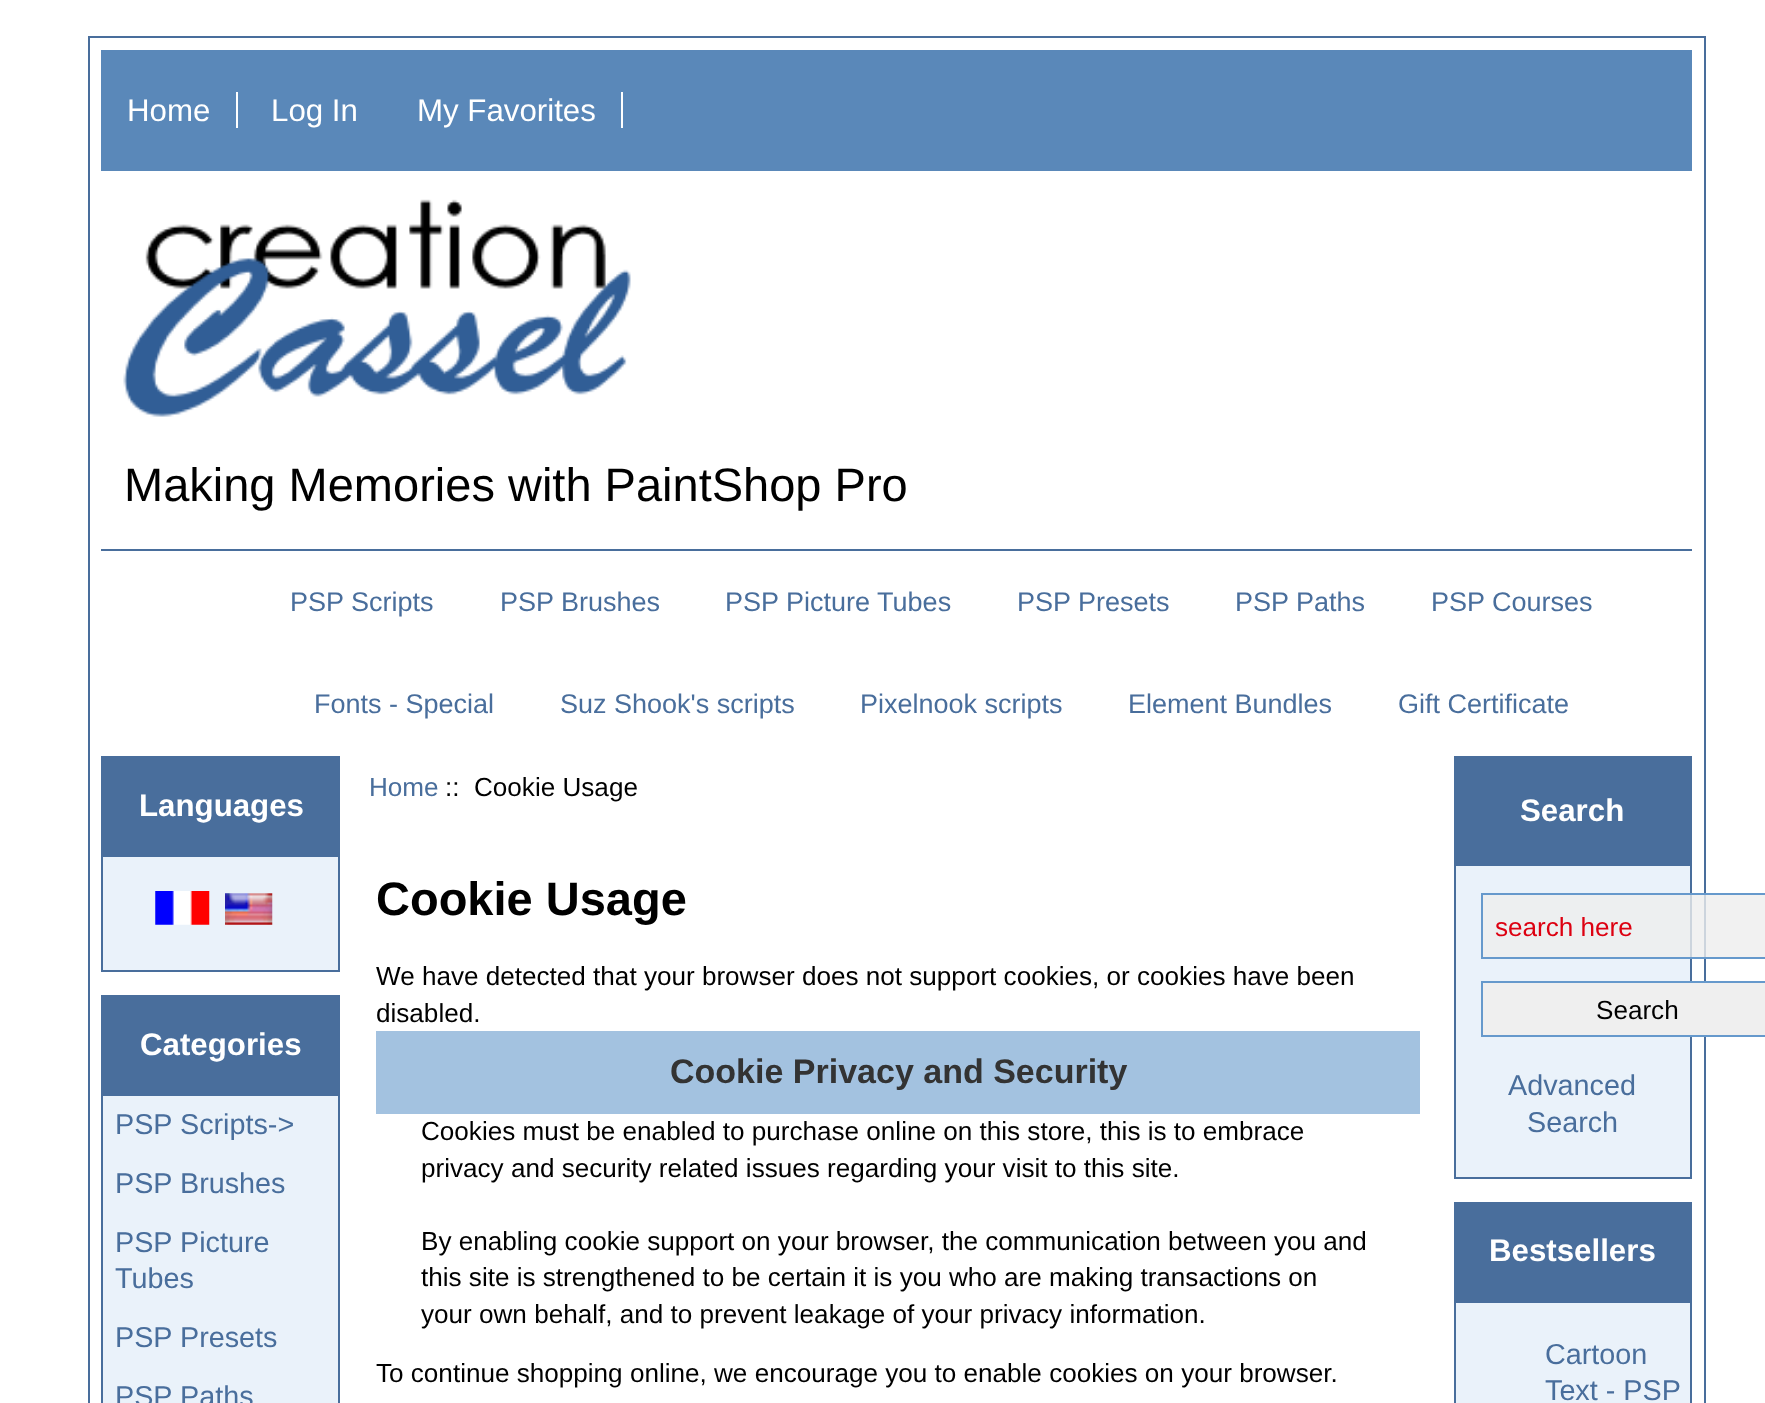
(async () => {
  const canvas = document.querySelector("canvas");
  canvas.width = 1765;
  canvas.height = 1403;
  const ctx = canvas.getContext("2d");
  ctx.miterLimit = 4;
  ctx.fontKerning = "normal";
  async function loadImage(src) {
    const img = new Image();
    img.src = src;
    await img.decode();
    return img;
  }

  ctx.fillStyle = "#ffffff";
  ctx.fillRect(0, 0, 1765, 1403);
  ctx.strokeStyle = "#496e9c";
  ctx.lineWidth = 2;
  ctx.strokeRect(89, 37, 1616, 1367);
  for (const [x, y, w, h, color] of [
    [101, 50, 1591, 121, "#5a88b9"],
    [236, 92, 2, 36, "#ffffff"],
    [621, 92, 2, 36, "#ffffff"],
    [101, 549, 1591, 2, "#496e9c"],
  ]) {
    ctx.fillStyle = color;
    ctx.fillRect(x, y, w, h);
  }
  ctx.drawImage(await loadImage("img/1.png"), 123, 199, 508, 218);
  ctx.fillRect(101, 756, 239, 99);
  ctx.fillStyle = "#eaf2fa";
  ctx.beginPath();
  ctx.rect(102, 856, 237, 115);
  ctx.fill();
  ctx.stroke();
  ctx.drawImage(await loadImage("img/2.png"), 155, 891, 55, 34);
  ctx.drawImage(await loadImage("img/3.png"), 225, 893, 48, 32);
  ctx.fillStyle = "#496e9c";
  ctx.fillRect(101, 995, 239, 99);
  ctx.fillStyle = "#eaf2fa";
  ctx.beginPath();
  ctx.rect(102, 1095, 237, 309);
  ctx.fill();
  ctx.stroke();
  ctx.fillStyle = "#a3c2e0";
  ctx.fillRect(376, 1031, 1044, 83);
  ctx.fillStyle = "#496e9c";
  ctx.fillRect(1454, 756, 238, 108);
  ctx.fillStyle = "#eaf2fa";
  ctx.beginPath();
  ctx.rect(1455, 865, 236, 313);
  ctx.fill();
  ctx.stroke();
  ctx.fillStyle = "rgba(238, 238, 238, 0.8)";
  ctx.beginPath();
  ctx.rect(1482, 894, 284, 64);
  ctx.fill();
  ctx.strokeStyle = "#6699cc";
  ctx.stroke();
  ctx.fillStyle = "#efefef";
  ctx.beginPath();
  ctx.rect(1482, 982, 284, 54);
  ctx.fill();
  ctx.stroke();
  ctx.fillStyle = "#496e9c";
  ctx.fillRect(1454, 1202, 238, 99);
  ctx.fillStyle = "#eaf2fa";
  ctx.beginPath();
  ctx.rect(1455, 1302, 236, 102);
  ctx.fill();
  ctx.strokeStyle = "#496e9c";
  ctx.stroke();
  ctx.font = "31.25px Liberation Sans";
  ctx.fillStyle = "#ffffff";
  for (const [text, x, y] of [
    ["Home", 127, 121],
    ["Log In", 271, 121],
    ["My Favorites", 417, 121],
  ]) {
    ctx.fillText(text, x, y);
  }
  ctx.font = "47px Liberation Sans";
  ctx.fillStyle = "#000000";
  ctx.fillText("Making Memories with PaintShop Pro", 124, 501);
  ctx.font = "27px Liberation Sans";
  ctx.fillStyle = "#496e9c";
  for (const [text, x, y] of [
    ["PSP Scripts", 290, 611],
    ["PSP Brushes", 500, 611],
    ["PSP Picture Tubes", 725, 611],
    ["PSP Presets", 1017, 611],
    ["PSP Paths", 1235, 611],
    ["PSP Courses", 1431, 611],
    ["Fonts - Special", 314, 713],
    ["Suz Shook's scripts", 560, 713],
    ["Pixelnook scripts", 860, 713],
    ["Element Bundles", 1128, 713],
    ["Gift Certificate", 1398, 713],
  ]) {
    ctx.fillText(text, x, y);
  }
  ctx.font = "bold 31.25px Liberation Sans";
  ctx.fillStyle = "#ffffff";
  ctx.fillText("Languages", 139, 816);
  ctx.fillText("Categories", 140, 1055);
  ctx.font = "28.75px Liberation Sans";
  ctx.fillStyle = "#496e9c";
  for (const [text, x, y] of [
    ["PSP Scripts->", 115, 1134],
    ["PSP Brushes", 115, 1193],
    ["PSP Picture", 115, 1252],
    ["Tubes", 115, 1288],
    ["PSP Presets", 115, 1347],
    ["PSP Paths", 115, 1406],
  ]) {
    ctx.fillText(text, x, y);
  }
  ctx.font = "26.1px Liberation Sans";
  ctx.fillText("Home", 369, 796);
  ctx.fillStyle = "#000000";
  ctx.fillText("::  Cookie Usage", 445, 796);
  ctx.font = "bold 47px Liberation Sans";
  ctx.fillText("Cookie Usage", 376, 915);
  ctx.font = "26.1px Liberation Sans";
  ctx.fillText("We have detected that your browser does not support cookies, or cookies have been", 376, 985);
  ctx.fillText("disabled.", 376, 1022);
  ctx.font = "bold 34px Liberation Sans";
  ctx.fillStyle = "#333333";
  ctx.fillText("Cookie Privacy and Security", 670, 1083);
  ctx.font = "26.1px Liberation Sans";
  ctx.fillStyle = "#000000";
  for (const [text, x, y] of [
    ["Cookies must be enabled to purchase online on this store, this is to embrace", 421, 1140],
    ["privacy and security related issues regarding your visit to this site.", 421, 1177],
    ["By enabling cookie support on your browser, the communication between you and", 421, 1250],
    ["this site is strengthened to be certain it is you who are making transactions on", 421, 1286],
    ["your own behalf, and to prevent leakage of your privacy information.", 421, 1323],
    ["To continue shopping online, we encourage you to enable cookies on your browser.", 376, 1382],
  ]) {
    ctx.fillText(text, x, y);
  }
  ctx.font = "bold 31.25px Liberation Sans";
  ctx.fillStyle = "#ffffff";
  ctx.fillText("Search", 1520, 821);
  ctx.font = "26.1px Liberation Sans";
  ctx.fillStyle = "#dd0011";
  ctx.fillText("search here", 1495, 936);
  ctx.fillStyle = "#000000";
  ctx.fillText("Search", 1596, 1019);
  ctx.font = "28.75px Liberation Sans";
  ctx.fillStyle = "#496e9c";
  ctx.fillText("Advanced", 1508, 1095);
  ctx.fillText("Search", 1527, 1132);
  ctx.font = "bold 31.25px Liberation Sans";
  ctx.fillStyle = "#ffffff";
  ctx.fillText("Bestsellers", 1489, 1261);
  ctx.font = "28.75px Liberation Sans";
  ctx.fillStyle = "#496e9c";
  ctx.fillText("Cartoon", 1545, 1364);
  ctx.fillText("Text - PSP", 1545, 1400);
})();
